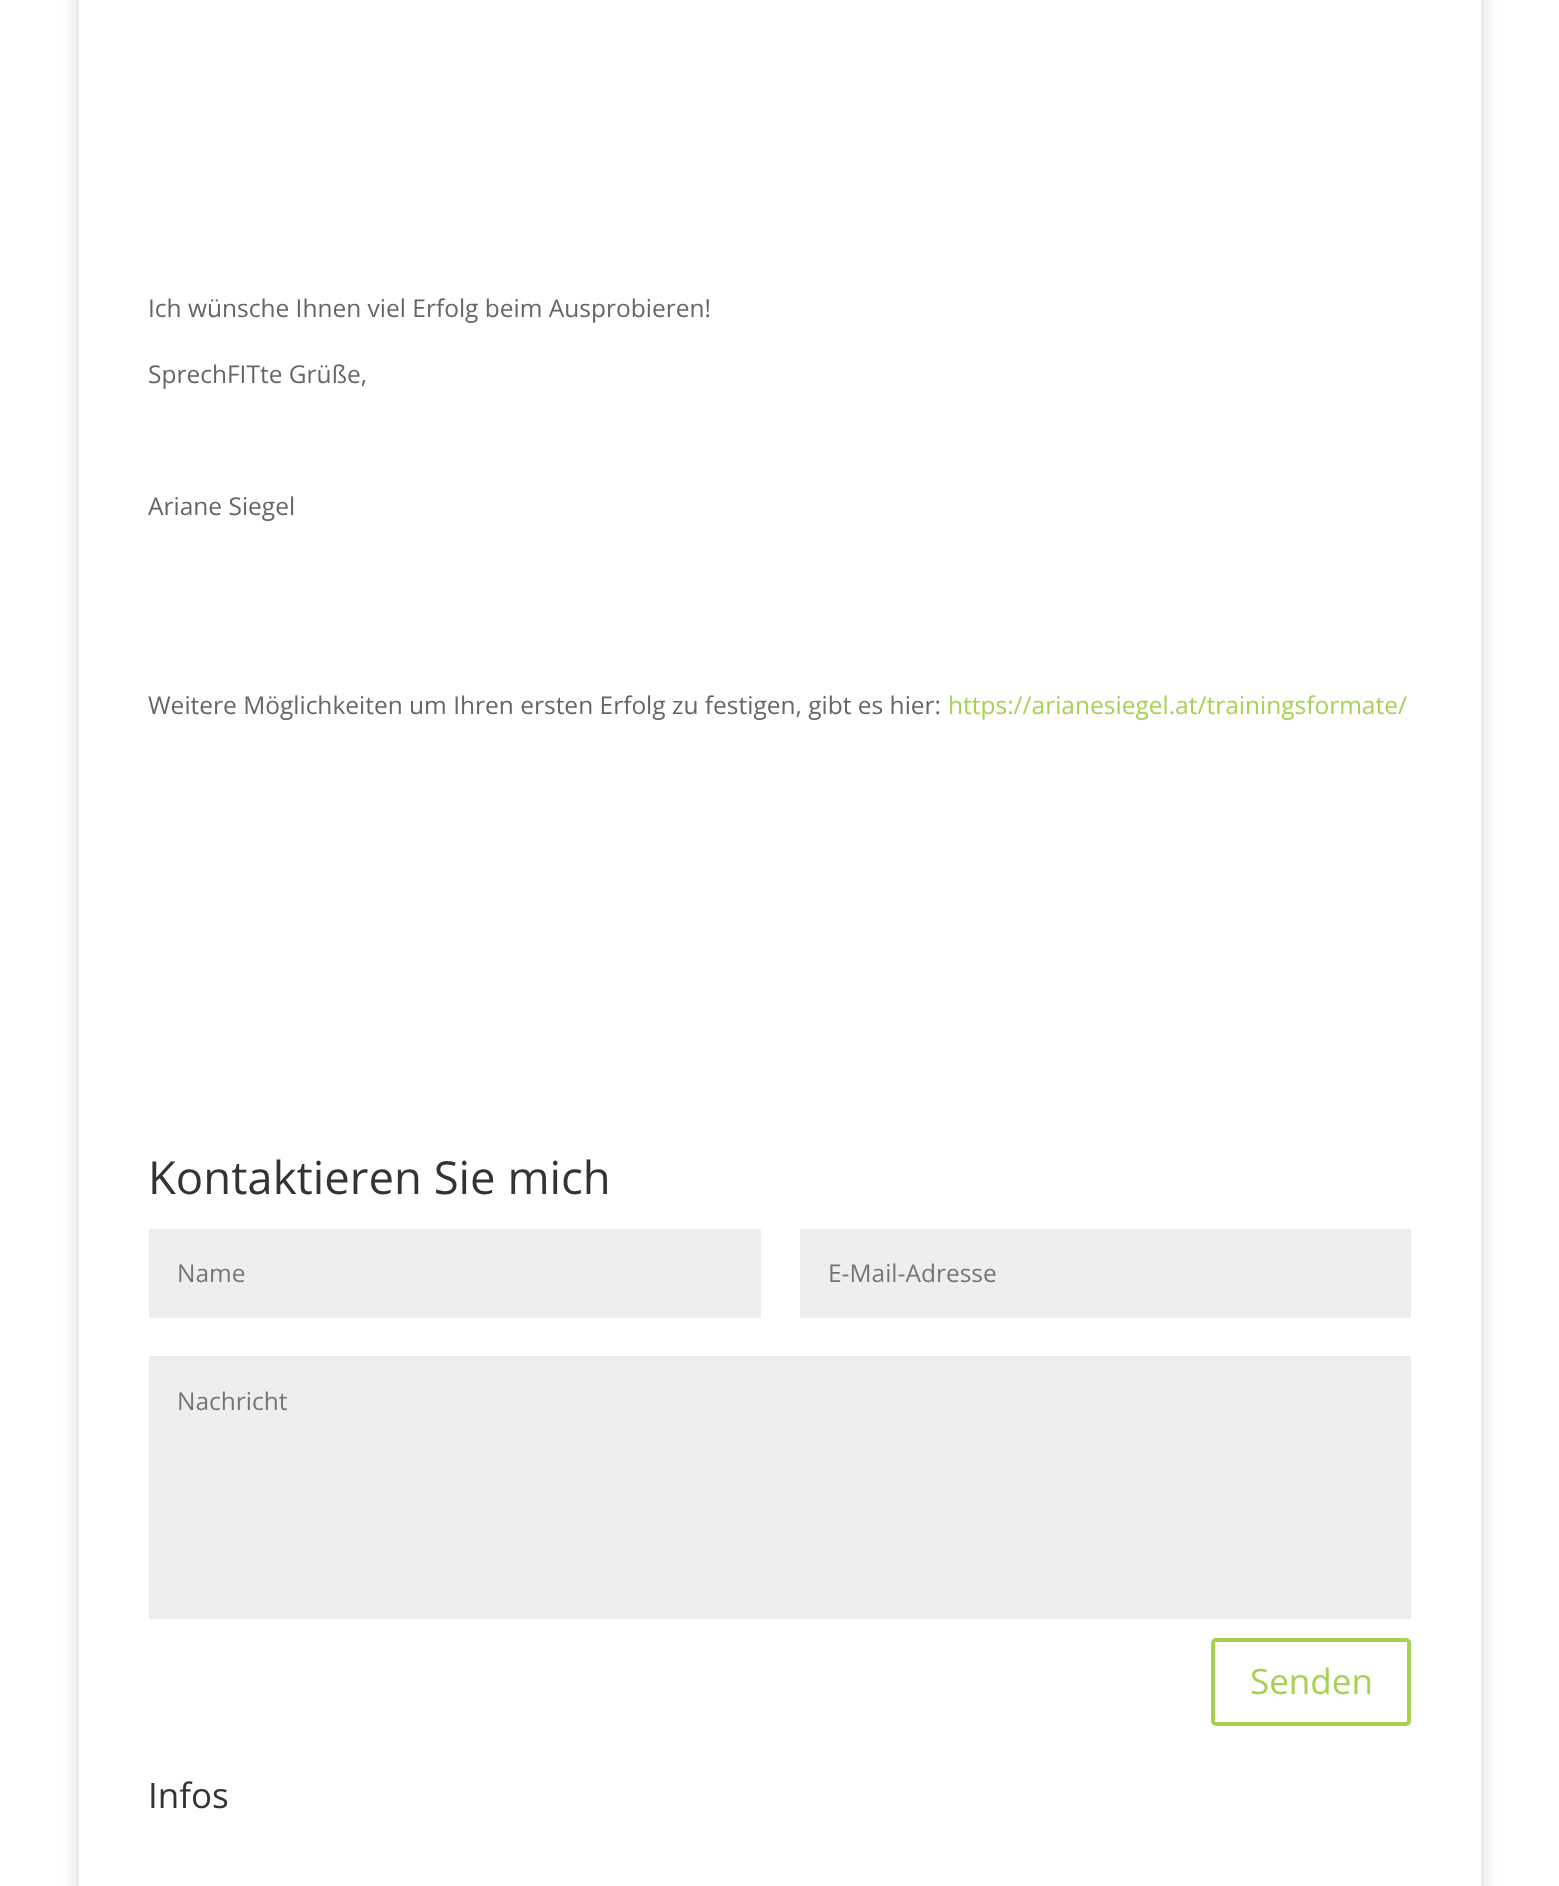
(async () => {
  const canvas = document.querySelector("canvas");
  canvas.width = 1559;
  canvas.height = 1886;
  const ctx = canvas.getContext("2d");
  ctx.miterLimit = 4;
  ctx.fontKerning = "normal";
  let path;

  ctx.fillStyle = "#ffffff";
  ctx.fillRect(0, 0, 1559, 1886);
  ctx.save();
  path = new Path2D("M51 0H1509V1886H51ZM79-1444H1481V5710H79Z");
  ctx.clip(path, "evenodd");
  ctx.fillStyle = "rgba(0, 0, 0, 0.2)";
  ctx.filter = "blur(9px)";
  ctx.beginPath();
  ctx.rect(79, -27, 1402, 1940);
  ctx.fill();
  ctx.filter = "none";
  ctx.restore();
  for (const [x, y, w, h, color] of [
    [1480, 0, 1, 928, "#ffffff"],
    [1480, 1015, 1, 871, "#ffffff"],
    [149, 1229, 612, 89, "#eeeeee"],
    [800, 1229, 611, 89, "#eeeeee"],
    [149, 1356, 1262, 263, "#eeeeee"],
  ]) {
    ctx.fillStyle = color;
    ctx.fillRect(x, y, w, h);
  }
  ctx.beginPath();
  ctx.roundRect(1213, 1640, 196, 84, 3);
  ctx.strokeStyle = "#a7d151";
  ctx.lineWidth = 4;
  ctx.stroke();
  ctx.font = "24.5px Open Sans";
  ctx.fillStyle = "#666666";
  for (const [text, x, y] of [
    ["Ich wünsche Ihnen viel Erfolg beim Ausprobieren!", 148, 317],
    ["SprechFITte Grüße,", 148, 383],
    ["Ariane Siegel", 148, 515],
    ["Weitere Möglichkeiten um Ihren ersten Erfolg zu festigen, gibt es hier:", 148, 714],
  ]) {
    ctx.fillText(text, x, y);
  }
  ctx.fillStyle = "#a7d151";
  ctx.fillText("https://arianesiegel.at/trainingsformate/", 948, 714);
  ctx.font = "45.5px Open Sans";
  ctx.fillStyle = "#333333";
  ctx.fillText("Kontaktieren Sie mich", 148, 1194);
  ctx.font = "24.5px Open Sans";
  ctx.fillStyle = "#757575";
  for (const [text, x, y] of [
    ["Name", 177, 1282],
    ["E-Mail-Adresse", 828, 1282],
    ["Nachricht", 177, 1410],
  ]) {
    ctx.fillText(text, x, y);
  }
  ctx.font = "35px Open Sans";
  ctx.fillStyle = "#a7d151";
  ctx.fillText("Senden", 1250, 1694);
  ctx.fillStyle = "#333333";
  ctx.fillText("Infos", 148, 1808);
})();
